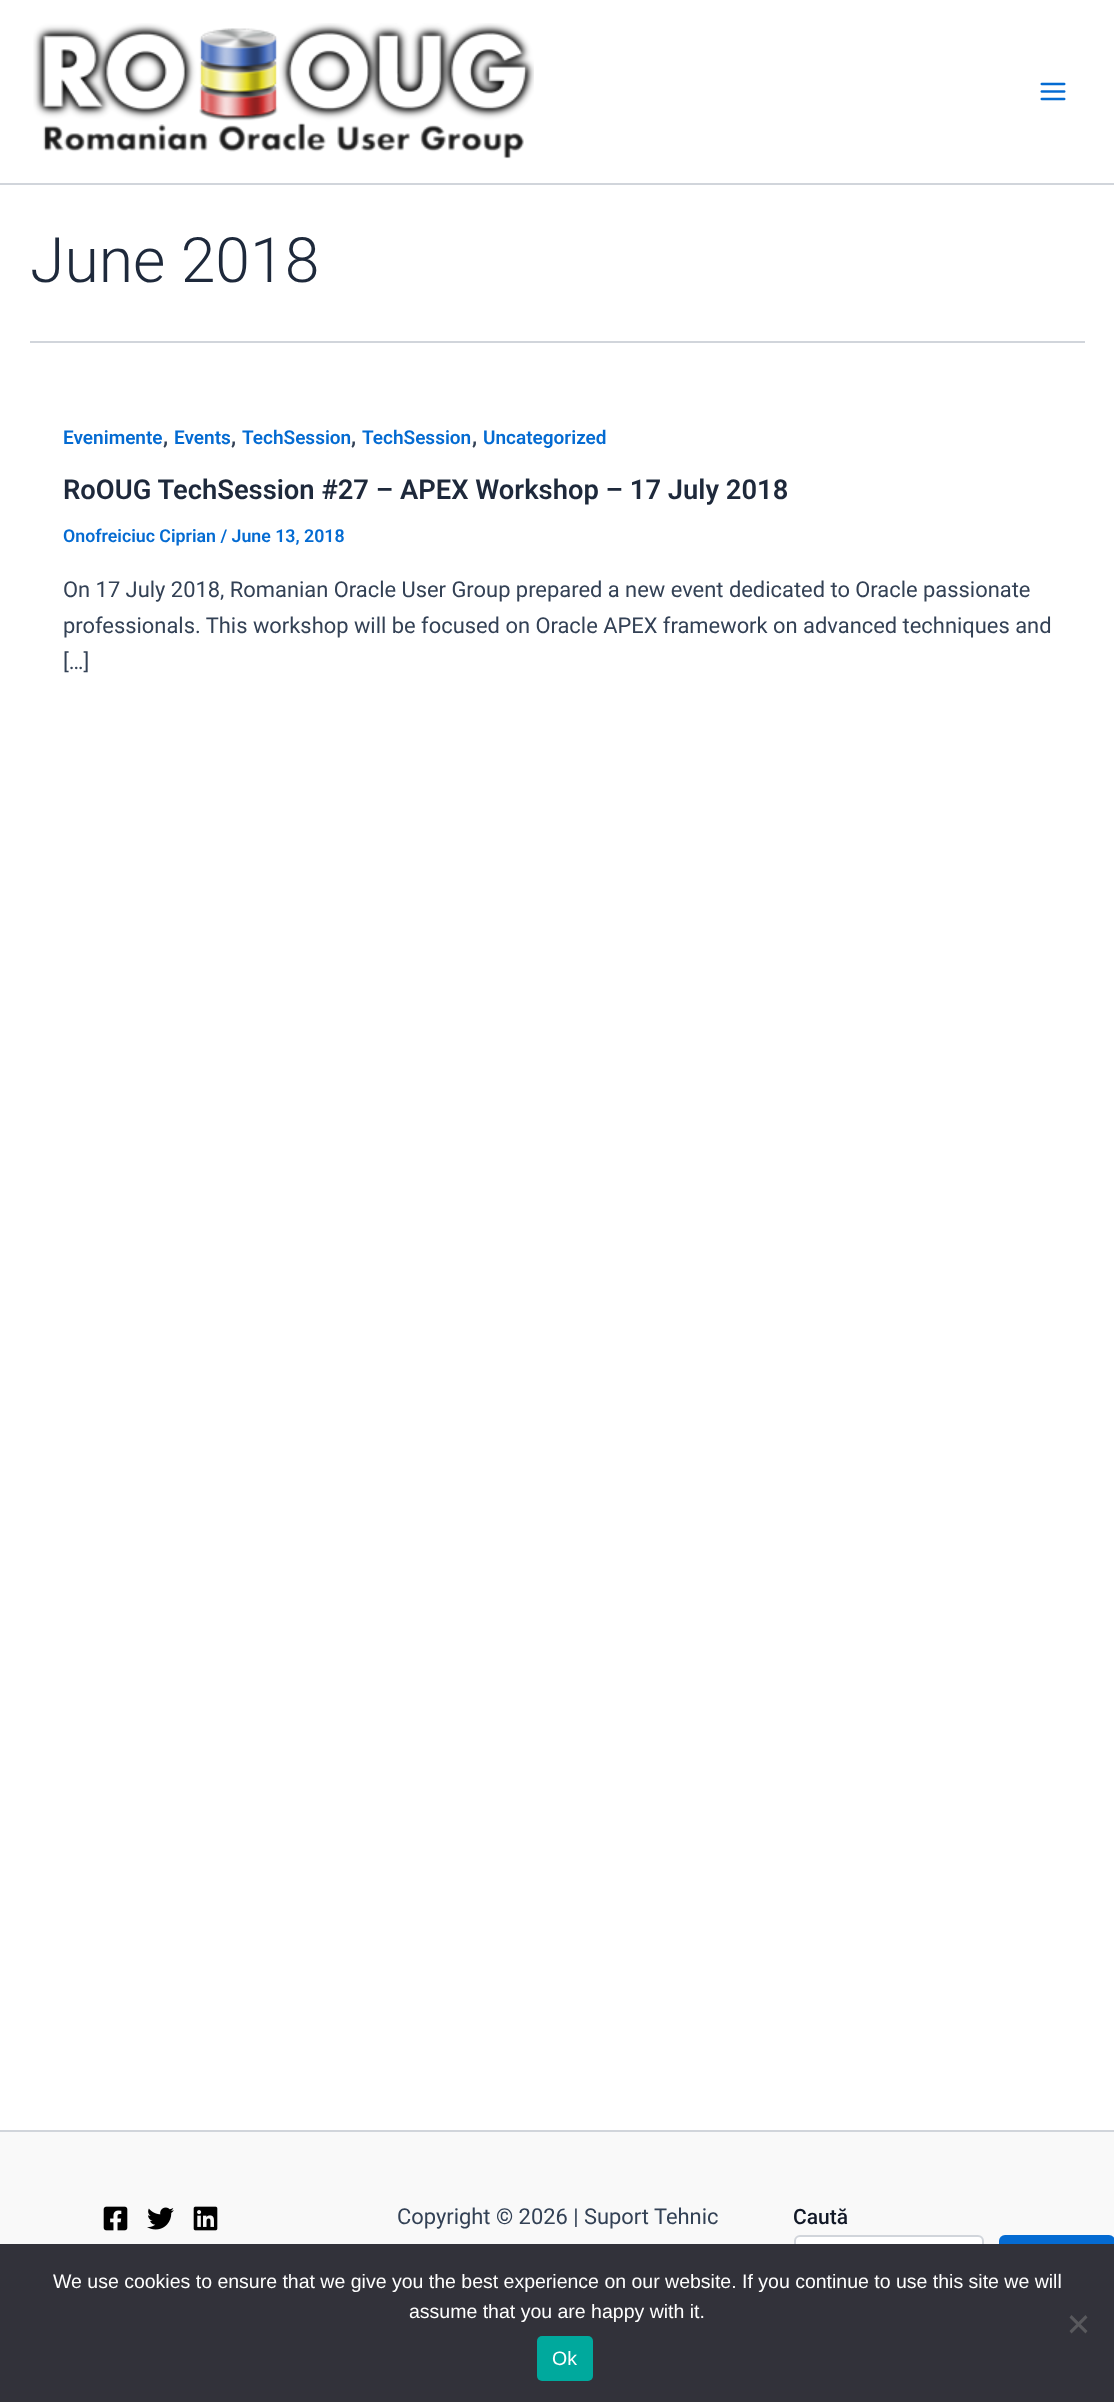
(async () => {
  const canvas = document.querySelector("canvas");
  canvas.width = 1114;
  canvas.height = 2402;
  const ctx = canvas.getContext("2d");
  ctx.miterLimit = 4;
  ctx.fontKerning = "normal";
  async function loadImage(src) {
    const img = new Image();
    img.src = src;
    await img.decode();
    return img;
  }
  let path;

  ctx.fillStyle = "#ffffff";
  ctx.fillRect(0, 0, 1114, 2402);
  ctx.fillStyle = "#d1d5db";
  ctx.fillRect(0, 183, 1114, 2);
  ctx.drawImage(await loadImage("img/1.png"), 33, 23, 501, 136);
  ctx.drawImage(await loadImage("img/2.png"), 1040, 82, 26, 19);
  for (const [x, y, w, h, color] of [
    [30, 341, 1055, 2, "#d1d5db"],
    [0, 2132, 1114, 112, "#f9f9f9"],
    [0, 2130, 1114, 2, "#d1d5db"],
  ]) {
    ctx.fillStyle = color;
    ctx.fillRect(x, y, w, h);
  }
  ctx.drawImage(await loadImage("img/3.png"), 103, 2206, 25, 25);
  ctx.drawImage(await loadImage("img/4.png"), 147, 2207, 27, 23);
  ctx.drawImage(await loadImage("img/5.png"), 193, 2206, 25, 25);
  ctx.fillStyle = "#ffffff";
  ctx.beginPath();
  ctx.roundRect(795, 2236, 188, 58, 5);
  ctx.fill();
  ctx.strokeStyle = "#d1d5db";
  ctx.lineWidth = 2;
  ctx.stroke();
  ctx.fillStyle = "#046bd2";
  ctx.beginPath();
  ctx.roundRect(999, 2235, 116, 86, 6);
  ctx.fill();
  ctx.fillStyle = "#32323a";
  ctx.fillRect(0, 2244, 1114, 158);
  ctx.fillStyle = "#59595d";
  path = new Path2D("M1085.5 2315L1087.5 2317.5L1071.5 2333.5L1069.5 2331Z");
  ctx.fill(path);
  path = new Path2D("M1069.5 2317.5L1071.5 2315L1087.5 2331L1085.5 2333.5Z");
  ctx.fill(path);
  ctx.fillStyle = "#00a99d";
  ctx.beginPath();
  ctx.roundRect(537, 2336, 56, 45, 5);
  ctx.fill();
  ctx.font = "300 62.5px Roboto";
  ctx.fillStyle = "#1e293b";
  ctx.fillText("June 2018", 30, 282);
  ctx.font = "600 19px Roboto";
  ctx.fillStyle = "#046bd2";
  ctx.fillText("Evenimente", 63, 444);
  ctx.font = "600 21.9px Roboto";
  ctx.fillStyle = "#334155";
  ctx.fillText(",", 163, 444);
  ctx.font = "600 19px Roboto";
  ctx.fillStyle = "#046bd2";
  ctx.fillText("Events", 174, 444);
  ctx.font = "600 21.9px Roboto";
  ctx.fillStyle = "#334155";
  ctx.fillText(",", 231, 444);
  ctx.font = "600 19px Roboto";
  ctx.fillStyle = "#046bd2";
  ctx.fillText("TechSession", 242, 444);
  ctx.font = "600 21.9px Roboto";
  ctx.fillStyle = "#334155";
  ctx.fillText(",", 351, 444);
  ctx.font = "600 19px Roboto";
  ctx.fillStyle = "#046bd2";
  ctx.fillText("TechSession", 362, 444);
  ctx.font = "600 21.9px Roboto";
  ctx.fillStyle = "#334155";
  ctx.fillText(",", 472, 444);
  ctx.font = "600 19px Roboto";
  ctx.fillStyle = "#046bd2";
  ctx.fillText("Uncategorized", 483, 444);
  ctx.font = "600 27.35px Roboto";
  ctx.fillStyle = "#1e293b";
  ctx.fillText("RoOUG TechSession #27 – APEX Workshop – 17 July 2018", 63, 499);
  ctx.font = "600 17.75px Roboto";
  ctx.fillStyle = "#046bd2";
  ctx.fillText("Onofreiciuc Ciprian / June 13, 2018", 63, 542);
  ctx.font = "21.9px Roboto";
  ctx.fillStyle = "#334155";
  for (const [text, x, y] of [
    ["On 17 July 2018, Romanian Oracle User Group prepared a new event dedicated to Oracle passionate", 63, 597],
    ["professionals. This workshop will be focused on Oracle APEX framework on advanced techniques and", 63, 633],
    ["[…]", 63, 669],
    ["Copyright © 2026 | Suport Tehnic", 397, 2224],
  ]) {
    ctx.fillText(text, x, y);
  }
  ctx.font = "500 21px Roboto";
  ctx.fillStyle = "#111827";
  ctx.fillText("Caută", 793, 2224);
  ctx.font = "19.5px Liberation Sans";
  ctx.fillStyle = "#ffffff";
  for (const [text, x, y] of [
    ["We use cookies to ensure that we give you the best experience on our website. If you continue to use this site we will", 53, 2288],
    ["assume that you are happy with it.", 409, 2318],
    ["Ok", 552, 2365],
  ]) {
    ctx.fillText(text, x, y);
  }
})();
